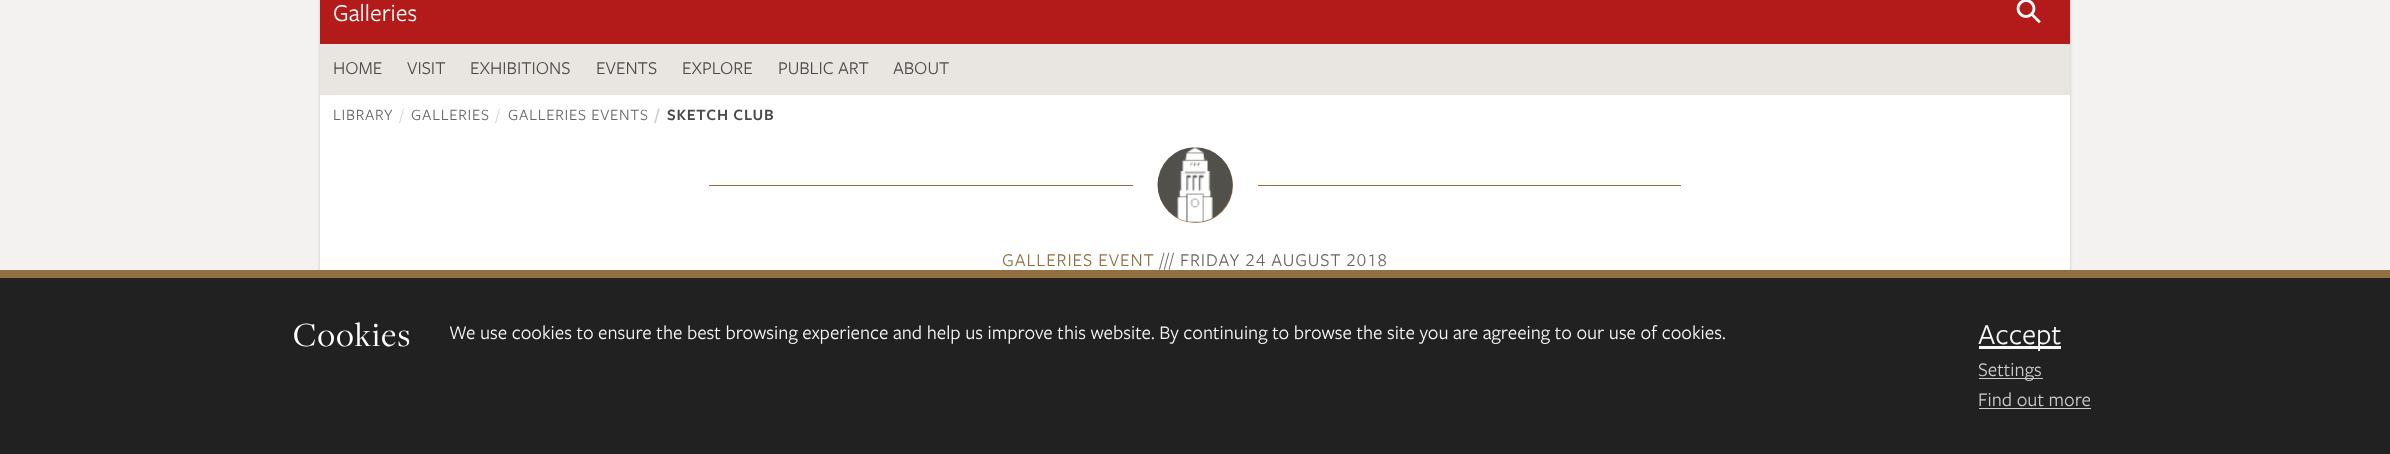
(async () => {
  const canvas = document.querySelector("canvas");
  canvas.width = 2390;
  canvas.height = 454;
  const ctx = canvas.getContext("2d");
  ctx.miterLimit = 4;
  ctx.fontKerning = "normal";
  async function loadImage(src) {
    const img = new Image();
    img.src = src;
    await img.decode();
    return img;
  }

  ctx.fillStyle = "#f4f2f0";
  ctx.fillRect(0, 0, 2390, 454);
  ctx.fillStyle = "rgba(0, 0, 0, 0.1)";
  ctx.filter = "blur(1px)";
  ctx.beginPath();
  ctx.rect(319, -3, 1752, 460);
  ctx.fill();
  ctx.filter = "none";
  ctx.fillStyle = "#ffffff";
  ctx.fillRect(320, 95, 1750, 175);
  ctx.fillStyle = "#b31b1b";
  ctx.fillRect(320, 0, 1750, 44);
  ctx.drawImage(await loadImage("img/1.png"), 2016, 0, 25, 24);
  ctx.fillStyle = "#e9e5e1";
  ctx.fillRect(320, 44, 1750, 51);
  ctx.fillStyle = "#916f40";
  ctx.fillRect(709, 185, 424, 1);
  ctx.beginPath();
  ctx.arc(1195.5, 185.5, 37.5, 0, Math.PI * 2);
  ctx.fill();
  ctx.drawImage(await loadImage("img/2.png"), 1157, 147, 76, 76);
  for (const [x, y, w, h, color] of [
    [1258, 185, 423, 1, "#916f40"],
    [0, 278, 2390, 176, "#212121"],
    [0, 270, 2390, 8, "#916f40"],
    [1979, 346, 82, 3, "#f7f7f7"],
    [1979, 378, 64, 1, "#cccccc"],
    [1979, 408, 112, 1, "#cccccc"],
  ]) {
    ctx.fillStyle = color;
    ctx.fillRect(x, y, w, h);
  }
  ctx.font = "25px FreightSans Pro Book";
  ctx.fillStyle = "#ffffff";
  ctx.fillText("Galleries", 333, 21);
  ctx.font = "18.75px FreightSans Pro Book";
  ctx.fillStyle = "#4a4a4a";
  for (const [text, x, y] of [
    ["HOME", 333, 74],
    ["VISIT", 407, 74],
    ["EXHIBITIONS", 470, 74],
    ["EVENTS", 596, 74],
    ["EXPLORE", 682, 74],
    ["PUBLIC ART", 778, 74],
    ["ABOUT", 893, 74],
  ]) {
    ctx.fillText(text, x, y);
  }
  ctx.letterSpacing = "0.75px";
  ctx.font = "16.25px FreightSans Pro Book";
  ctx.fillStyle = "#666666";
  ctx.fillText("LIBRARY", 333, 120);
  ctx.fillStyle = "#cccccc";
  ctx.fillText("/", 400, 120);
  ctx.fillStyle = "#666666";
  ctx.fillText("GALLERIES", 411, 120);
  ctx.fillStyle = "#cccccc";
  ctx.fillText("/", 496, 120);
  ctx.fillStyle = "#666666";
  ctx.fillText("GALLERIES EVENTS", 508, 120);
  ctx.font = "600 16.25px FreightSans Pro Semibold";
  ctx.fillStyle = "#cccccc";
  ctx.fillText("/", 655, 120);
  ctx.fillStyle = "#4a4a4a";
  ctx.fillText("SKETCH CLUB", 667, 120);
  ctx.letterSpacing = "0.9px";
  ctx.font = "18.75px FreightSans Pro Book";
  ctx.fillStyle = "#916f40";
  ctx.fillText("GALLERIES EVENT", 1002, 266);
  ctx.fillStyle = "#666666";
  ctx.fillText("///", 1160, 266);
  ctx.font = "18.75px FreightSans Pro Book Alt";
  ctx.fillText("FRIDAY 24 AUGUST 2018", 1180, 266);
  ctx.letterSpacing = "1.25px";
  ctx.font = "35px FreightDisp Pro";
  ctx.fillStyle = "#ffffff";
  ctx.fillText("Cookies", 293, 346);
  ctx.letterSpacing = "0px";
  ctx.font = "20px FreightSans Pro Book";
  ctx.fillStyle = "#f7f7f7";
  ctx.fillText("We use cookies to ensure the best browsing experience and help us improve this website. By continuing to browse the site you are agreeing to our use of cookies.", 449, 339);
  ctx.font = "30px FreightSans Pro Book";
  ctx.fillText("Accept", 1978, 344);
  ctx.font = "20px FreightSans Pro Book";
  ctx.fillStyle = "#cccccc";
  ctx.fillText("Settings", 1978, 376);
  ctx.fillText("Find out more", 1978, 406);
})();
